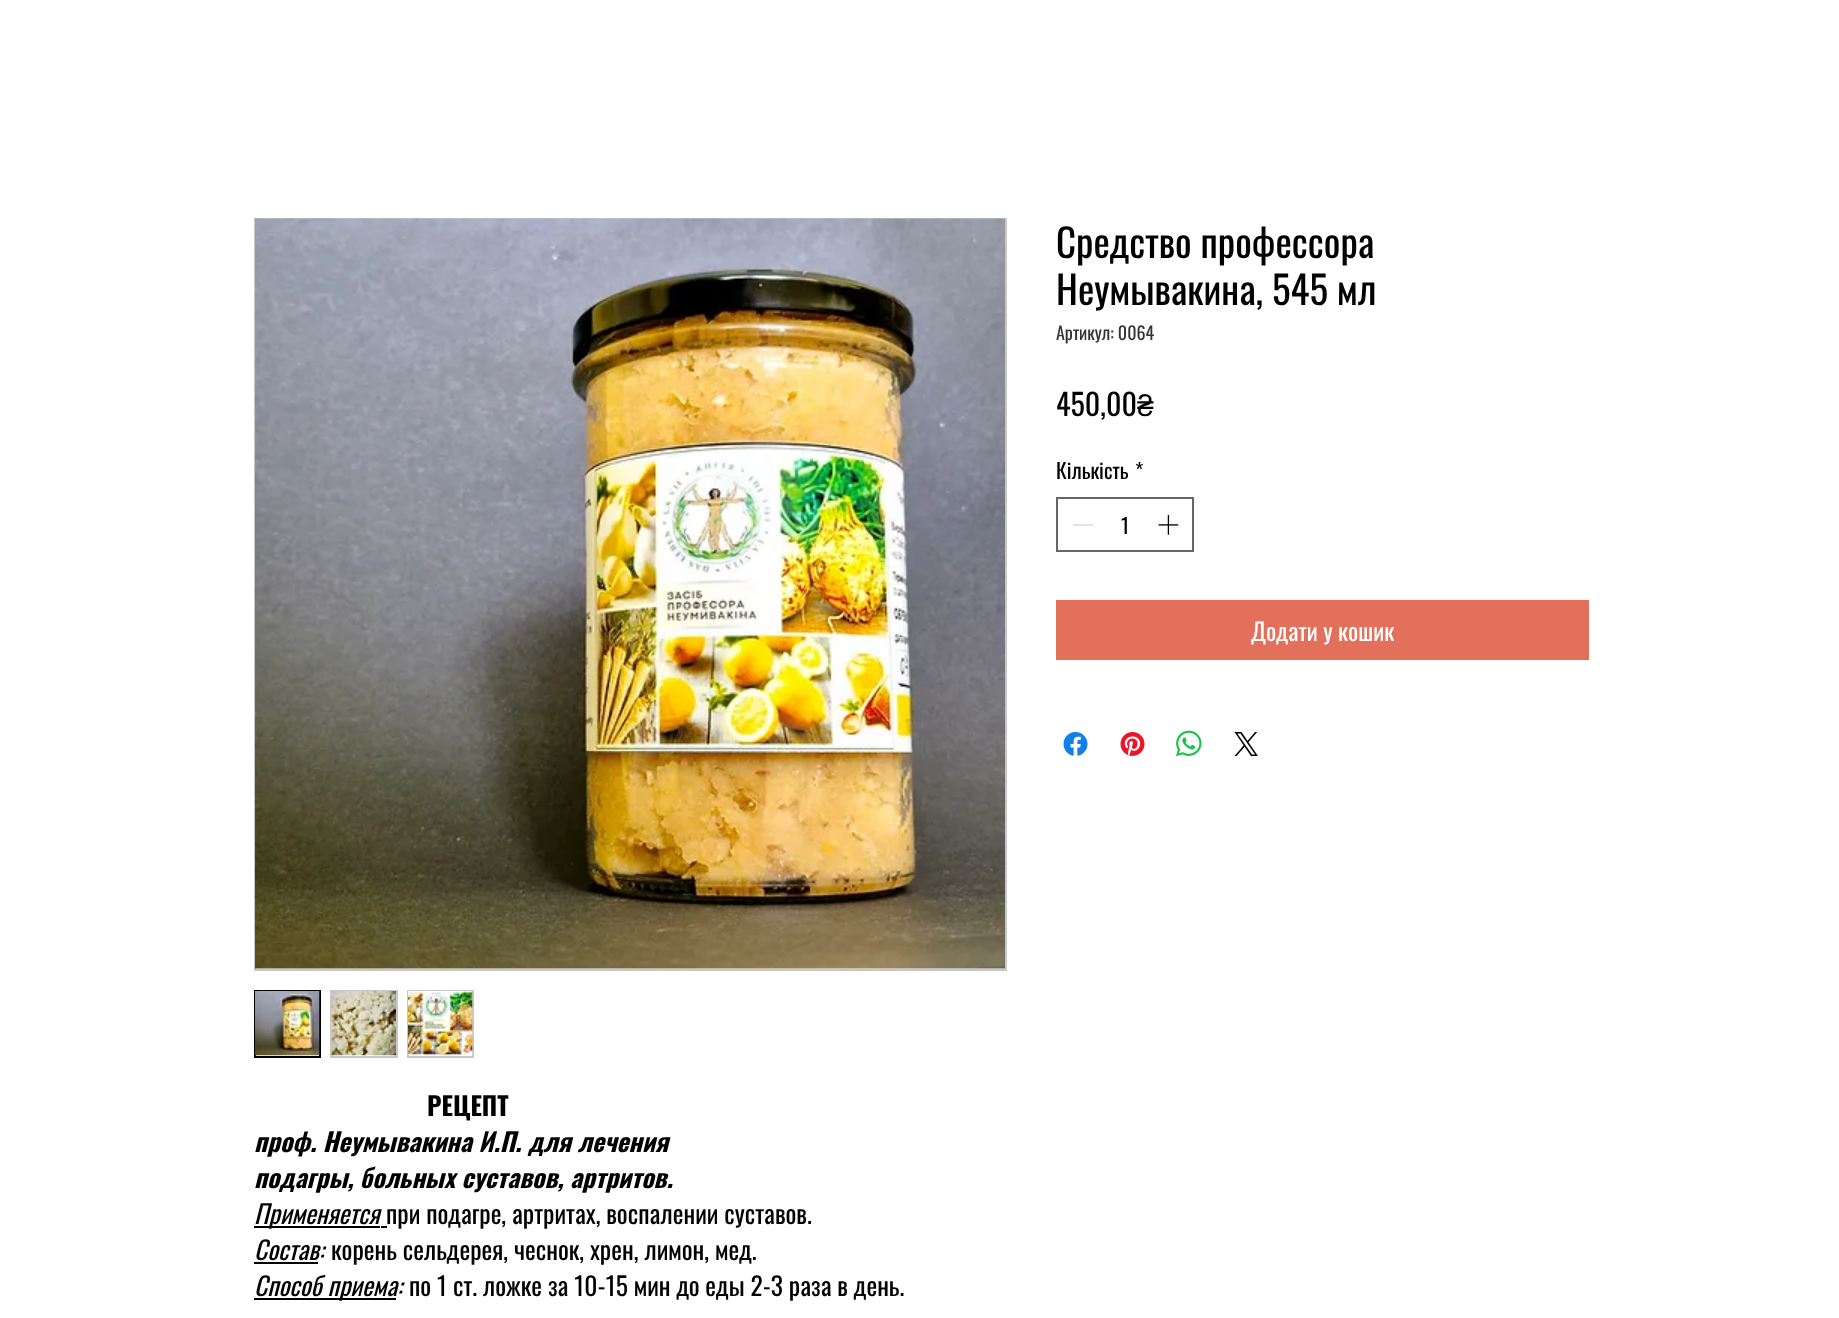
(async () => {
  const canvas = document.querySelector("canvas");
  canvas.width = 1839;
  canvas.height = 1318;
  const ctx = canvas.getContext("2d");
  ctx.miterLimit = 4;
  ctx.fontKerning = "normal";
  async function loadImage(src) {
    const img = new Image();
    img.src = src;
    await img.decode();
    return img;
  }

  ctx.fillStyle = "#ffffff";
  ctx.fillRect(0, 0, 1839, 1318);
  ctx.strokeStyle = "#666666";
  ctx.lineWidth = 2;
  ctx.strokeRect(1057, 498, 136, 53);
  ctx.fillStyle = "#e3e3e3";
  ctx.fillRect(1073, 524, 20, 2);
  ctx.drawImage(await loadImage("img/1.png"), 1158, 515, 21, 20);
  ctx.fillStyle = "#e2705a";
  ctx.fillRect(1056, 600, 533, 60);
  ctx.drawImage(await loadImage("img/2.png"), 1063, 732, 25, 24);
  ctx.drawImage(await loadImage("img/3.png"), 1120, 732, 25, 24);
  ctx.drawImage(await loadImage("img/4.png"), 1176, 730, 26, 27);
  ctx.drawImage(await loadImage("img/5.png"), 1234, 732, 24, 24);
  ctx.strokeStyle = "#c7c7c7";
  ctx.strokeRect(255, 219, 751, 751);
  ctx.drawImage(await loadImage("img/6.png"), 255, 218, 750, 751);
  ctx.strokeStyle = "#000000";
  ctx.strokeRect(255, 991, 65, 66);
  ctx.drawImage(await loadImage("img/7.png"), 255, 991, 65, 65);
  ctx.strokeStyle = "#c7c7c7";
  ctx.strokeRect(331, 991, 66, 66);
  ctx.drawImage(await loadImage("img/8.png"), 331, 991, 65, 65);
  ctx.strokeRect(408, 991, 65, 66);
  ctx.drawImage(await loadImage("img/9.png"), 408, 991, 65, 65);
  for (const [x, y, w, h, color] of [
    [254, 1226, 126, 2, "#000000"],
    [381, 1226, 6, 2, "#000000"],
    [254, 1262, 64, 2, "#000000"],
    [254, 1298, 142, 2, "#000000"],
  ]) {
    ctx.fillStyle = color;
    ctx.fillRect(x, y, w, h);
  }
  ctx.font = "39px Oswald";
  ctx.fillText("Средство профессора", 1056, 258);
  ctx.fillText("Неумывакина, 545 мл", 1056, 305);
  ctx.font = "18px Oswald";
  ctx.fillStyle = "#333333";
  ctx.fillText("Артикул: 0064", 1056, 340);
  ctx.font = "30px Oswald";
  ctx.fillStyle = "#000000";
  ctx.fillText("450,00", 1056, 416);
  ctx.font = "30px Liberation Sans";
  ctx.fillText("₴", 1137, 416);
  ctx.font = "21px Oswald";
  for (const [text, x, y] of [
    ["Кількість", 1056, 479],
    ["*", 1135, 479],
    ["1", 1121, 534],
  ]) {
    ctx.fillText(text, x, y);
  }
  ctx.font = "24px Oswald";
  ctx.fillStyle = "#ffffff";
  ctx.fillText("Додати у кошик", 1251, 641);
  ctx.font = "bold 25.5px Oswald";
  ctx.fillStyle = "#000000";
  ctx.fillText("РЕЦЕПТ", 427, 1116);
  ctx.font = "italic bold 25.5px Oswald";
  ctx.fillText("проф. Неумывакина И.П. для лечения", 254, 1152);
  ctx.fillText("подагры, больных суставов, артритов.", 254, 1188);
  ctx.font = "italic 25.5px Oswald";
  ctx.fillText("Применяется", 254, 1224);
  ctx.font = "25.5px Oswald";
  ctx.fillText("при подагре, артритах, воспалении суставов.", 386, 1224);
  ctx.font = "italic 25.5px Oswald";
  ctx.fillText("Состав:", 254, 1260);
  ctx.font = "25.5px Oswald";
  ctx.fillText("корень сельдерея, чеснок, хрен, лимон, мед.", 331, 1260);
  ctx.font = "italic 25.5px Oswald";
  ctx.fillText("Способ приема:", 254, 1296);
  ctx.font = "25.5px Oswald";
  ctx.fillText("по 1 ст. ложке за 10-15 мин до еды 2-3 раза в день.", 409, 1296);
})();
